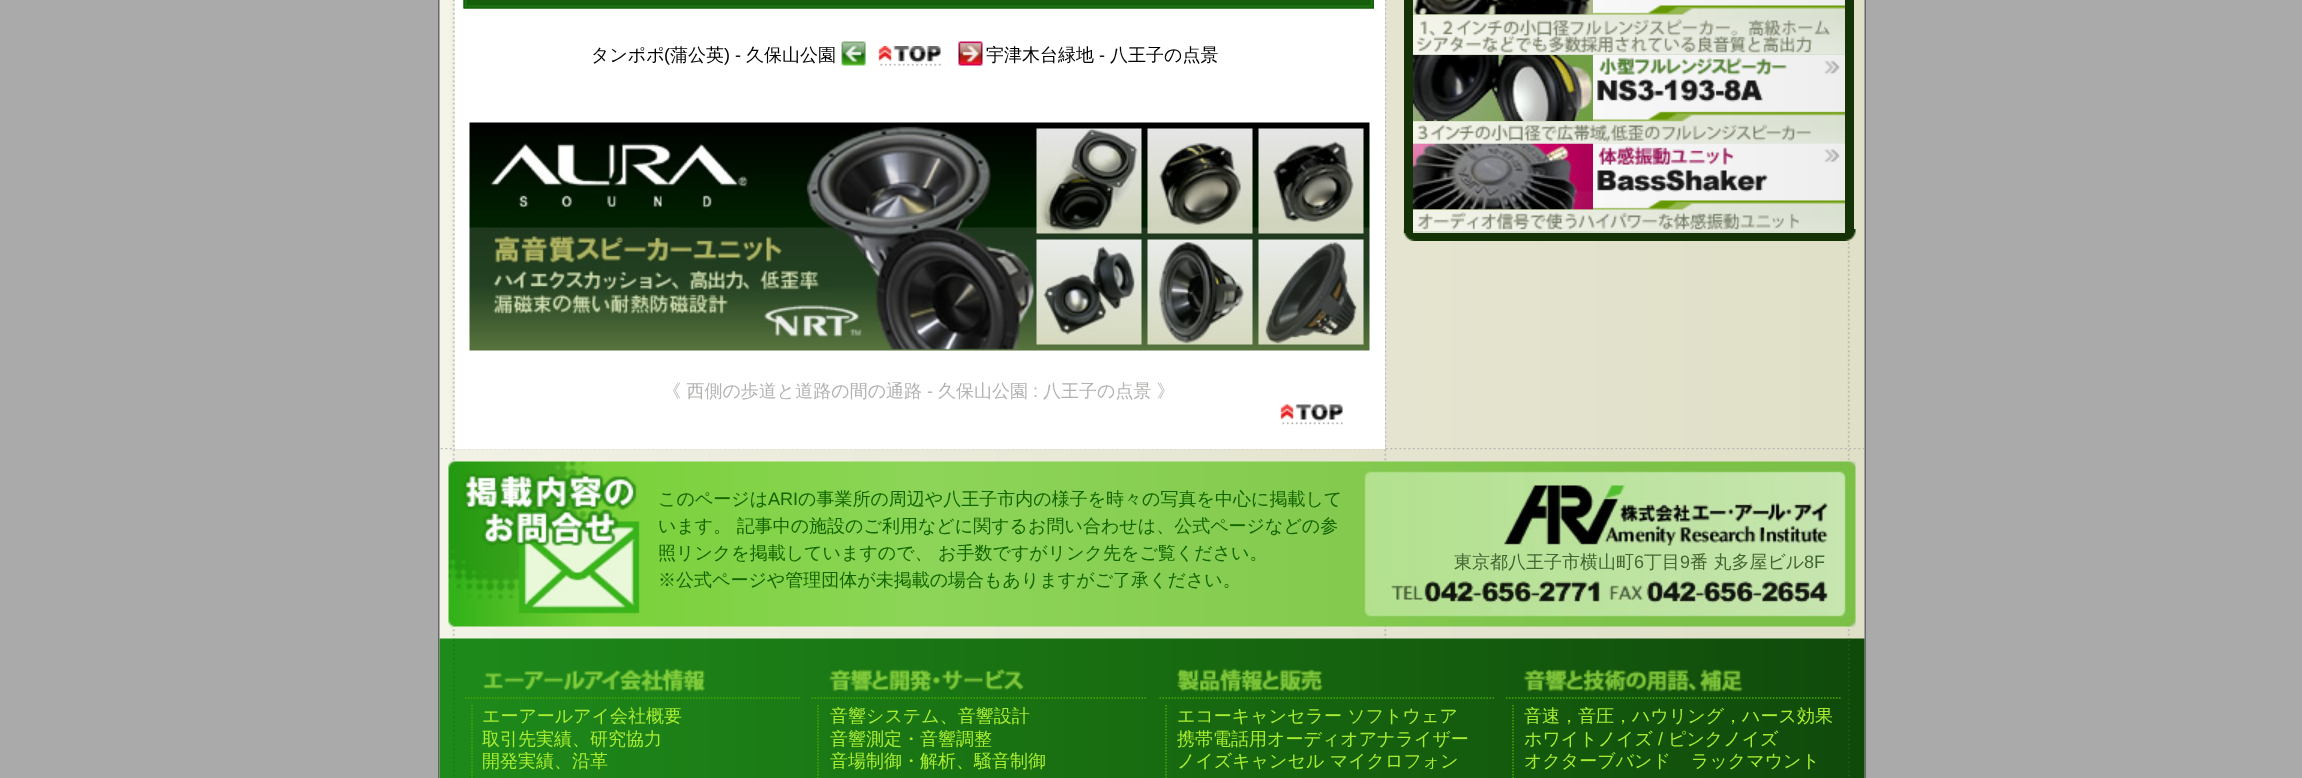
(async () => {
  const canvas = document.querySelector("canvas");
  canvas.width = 2302;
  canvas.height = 778;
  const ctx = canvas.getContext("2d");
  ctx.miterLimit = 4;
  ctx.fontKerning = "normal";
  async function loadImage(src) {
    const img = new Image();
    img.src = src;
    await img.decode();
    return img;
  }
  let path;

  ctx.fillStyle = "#aaaaaa";
  ctx.fillRect(0, 0, 2302, 778);
  ctx.drawImage(await loadImage("img/1.png"), 438, 0, 1428, 778);
  ctx.drawImage(await loadImage("img/23.png"), 440, 448, 1424, 2);
  ctx.fillStyle = "#ffffff";
  ctx.fillRect(455, 0, 930, 449);
  ctx.drawImage(await loadImage("img/2.png"), 463, 0, 911, 9);
  ctx.drawImage(await loadImage("img/3.png"), 463, 0, 911, 9);
  ctx.drawImage(await loadImage("img/4.png"), 1403, 229, 453, 12);
  ctx.fillStyle = "#153206";
  ctx.fillRect(1404, 0, 450, 233);
  ctx.drawImage(await loadImage("img/5.png"), 1413, 0, 432, 54);
  ctx.drawImage(await loadImage("img/6.png"), 1413, 0, 180, 15);
  ctx.drawImage(await loadImage("img/7.png"), 1417, 18, 414, 35);
  ctx.fillStyle = "#d8e0d0";
  ctx.fillRect(1413, 54, 432, 1);
  ctx.drawImage(await loadImage("img/8.png"), 1413, 55, 432, 88);
  ctx.drawImage(await loadImage("img/9.png"), 1824, 60, 16, 15);
  ctx.drawImage(await loadImage("img/10.png"), 1413, 55, 180, 66);
  ctx.drawImage(await loadImage("img/11.png"), 1597, 57, 190, 45);
  ctx.drawImage(await loadImage("img/12.png"), 1417, 124, 394, 19);
  ctx.fillRect(1413, 143, 432, 1);
  ctx.drawImage(await loadImage("img/13.png"), 1413, 143, 432, 88);
  ctx.drawImage(await loadImage("img/14.png"), 1824, 149, 16, 14);
  ctx.drawImage(await loadImage("img/15.png"), 1413, 143, 180, 67);
  ctx.drawImage(await loadImage("img/16.png"), 1597, 146, 171, 46);
  ctx.drawImage(await loadImage("img/17.png"), 1417, 212, 382, 18);
  ctx.fillRect(1413, 231, 432, 2);
  ctx.drawImage(await loadImage("img/18.png"), 841, 41, 25, 25);
  ctx.drawImage(await loadImage("img/19.png"), 878, 46, 63, 20);
  ctx.drawImage(await loadImage("img/20.png"), 958, 41, 25, 25);
  ctx.drawImage(await loadImage("img/21.png"), 469, 122, 901, 229);
  ctx.drawImage(await loadImage("img/22.png"), 1280, 404, 63, 21);
  ctx.drawImage(await loadImage("img/24.png"), 448, 461, 1408, 166);
  ctx.drawImage(await loadImage("img/25.png"), 439, 638, 1426, 140);
  ctx.drawImage(await loadImage("img/26.png"), 483, 668, 222, 24);
  path = new Path2D("M465 698H799.5");
  ctx.strokeStyle = "#44aa00";
  ctx.lineWidth = 1.5;
  ctx.setLineDash([1.5, 1.5]);
  ctx.stroke(path);
  path = new Path2D("M472 705V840");
  ctx.stroke(path);
  ctx.drawImage(await loadImage("img/27.png"), 829, 668, 195, 24);
  path = new Path2D("M811.5 698H1147.5");
  ctx.stroke(path);
  path = new Path2D("M818 705V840");
  ctx.stroke(path);
  ctx.drawImage(await loadImage("img/28.png"), 1177, 668, 146, 24);
  path = new Path2D("M1159.5 698H1494");
  ctx.stroke(path);
  path = new Path2D("M1166 705V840");
  ctx.stroke(path);
  ctx.drawImage(await loadImage("img/29.png"), 1523, 669, 220, 23);
  path = new Path2D("M1506 698H1842");
  ctx.stroke(path);
  path = new Path2D("M1513 705V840");
  ctx.stroke(path);
  ctx.font = "500 18px WenQuanYi Zen Hei";
  ctx.fillStyle = "#000000";
  ctx.fillText("タンポポ", 591, 61);
  ctx.font = "18px Liberation Sans";
  ctx.fillText("(", 664, 61);
  ctx.font = "500 18px WenQuanYi Zen Hei";
  ctx.fillText("蒲公英", 670, 61);
  ctx.font = "18px Liberation Sans";
  ctx.fillText(") -", 724, 61);
  ctx.font = "500 18px WenQuanYi Zen Hei";
  ctx.fillText("久保山公園", 746, 61);
  ctx.fillText("宇津木台緑地", 986, 61);
  ctx.font = "18px Liberation Sans";
  ctx.fillText("-", 1099, 61);
  ctx.font = "500 18px WenQuanYi Zen Hei";
  ctx.fillText("八王子の点景", 1110, 61);
  ctx.fillStyle = "#b2b3b1";
  ctx.fillText("《 西側の歩道と道路の間の通路", 663, 397);
  ctx.font = "18px Liberation Sans";
  ctx.fillText("-", 927, 397);
  ctx.font = "500 18px WenQuanYi Zen Hei";
  ctx.fillText("久保山公園", 938, 397);
  ctx.font = "18px Liberation Sans";
  ctx.fillText(":", 1033, 397);
  ctx.font = "500 18px WenQuanYi Zen Hei";
  ctx.fillText("八王子の点景 》", 1043, 397);
  ctx.fillStyle = "#116600";
  ctx.fillText("このページは", 658, 505);
  ctx.font = "18px Liberation Sans";
  ctx.fillText("ARI", 768, 505);
  ctx.font = "500 18px WenQuanYi Zen Hei";
  for (const [text, x, y] of [
    ["の事業所の周辺や八王子市内の様子を時々の写真を中心に掲載して", 798, 505],
    ["います。 記事中の施設のご利用などに関するお問い合わせは、公式ページなどの参", 658, 532],
    ["照リンクを掲載していますので、 お手数ですがリンク先をご覧ください。", 658, 559],
    ["※公式ページや管理団体が未掲載の場合もありますがご了承ください。", 658, 586],
  ]) {
    ctx.fillText(text, x, y);
  }
  ctx.fillStyle = "#446633";
  ctx.fillText("東京都八王子市横山町", 1454, 568);
  ctx.font = "18px Liberation Sans";
  ctx.fillText("6", 1634, 568);
  ctx.font = "500 18px WenQuanYi Zen Hei";
  ctx.fillText("丁目", 1644, 568);
  ctx.font = "18px Liberation Sans";
  ctx.fillText("9", 1680, 568);
  ctx.font = "500 18px WenQuanYi Zen Hei";
  ctx.fillText("番 丸多屋ビル", 1690, 568);
  ctx.font = "18px Liberation Sans";
  ctx.fillText("8F", 1804, 568);
  ctx.font = "500 18px WenQuanYi Zen Hei";
  ctx.fillStyle = "#aaee33";
  for (const [text, x, y] of [
    ["エーアールアイ会社概要", 482, 722],
    ["取引先実績、研究協力", 482, 745],
    ["開発実績、沿革", 482, 767],
    ["音響システム、音響設計", 830, 722],
    ["音響測定・音響調整", 830, 745],
    ["音場制御・解析、騒音制御", 830, 767],
    ["エコーキャンセラー ソフトウェア", 1177, 722],
    ["携帯電話用オーディオアナライザー", 1177, 745],
    ["ノイズキャンセル マイクロフォン", 1177, 767],
    ["音速，音圧，ハウリング，ハース効果", 1524, 722],
    ["ホワイトノイズ", 1524, 745],
  ]) {
    ctx.fillText(text, x, y);
  }
  ctx.font = "18px Liberation Sans";
  ctx.fillText("/", 1658, 745);
  ctx.font = "500 18px WenQuanYi Zen Hei";
  for (const [text, x, y] of [
    ["ピンクノイズ", 1668, 745],
    ["オクターブバンド", 1524, 767],
    ["ラックマウント", 1691, 767],
  ]) {
    ctx.fillText(text, x, y);
  }
})();
